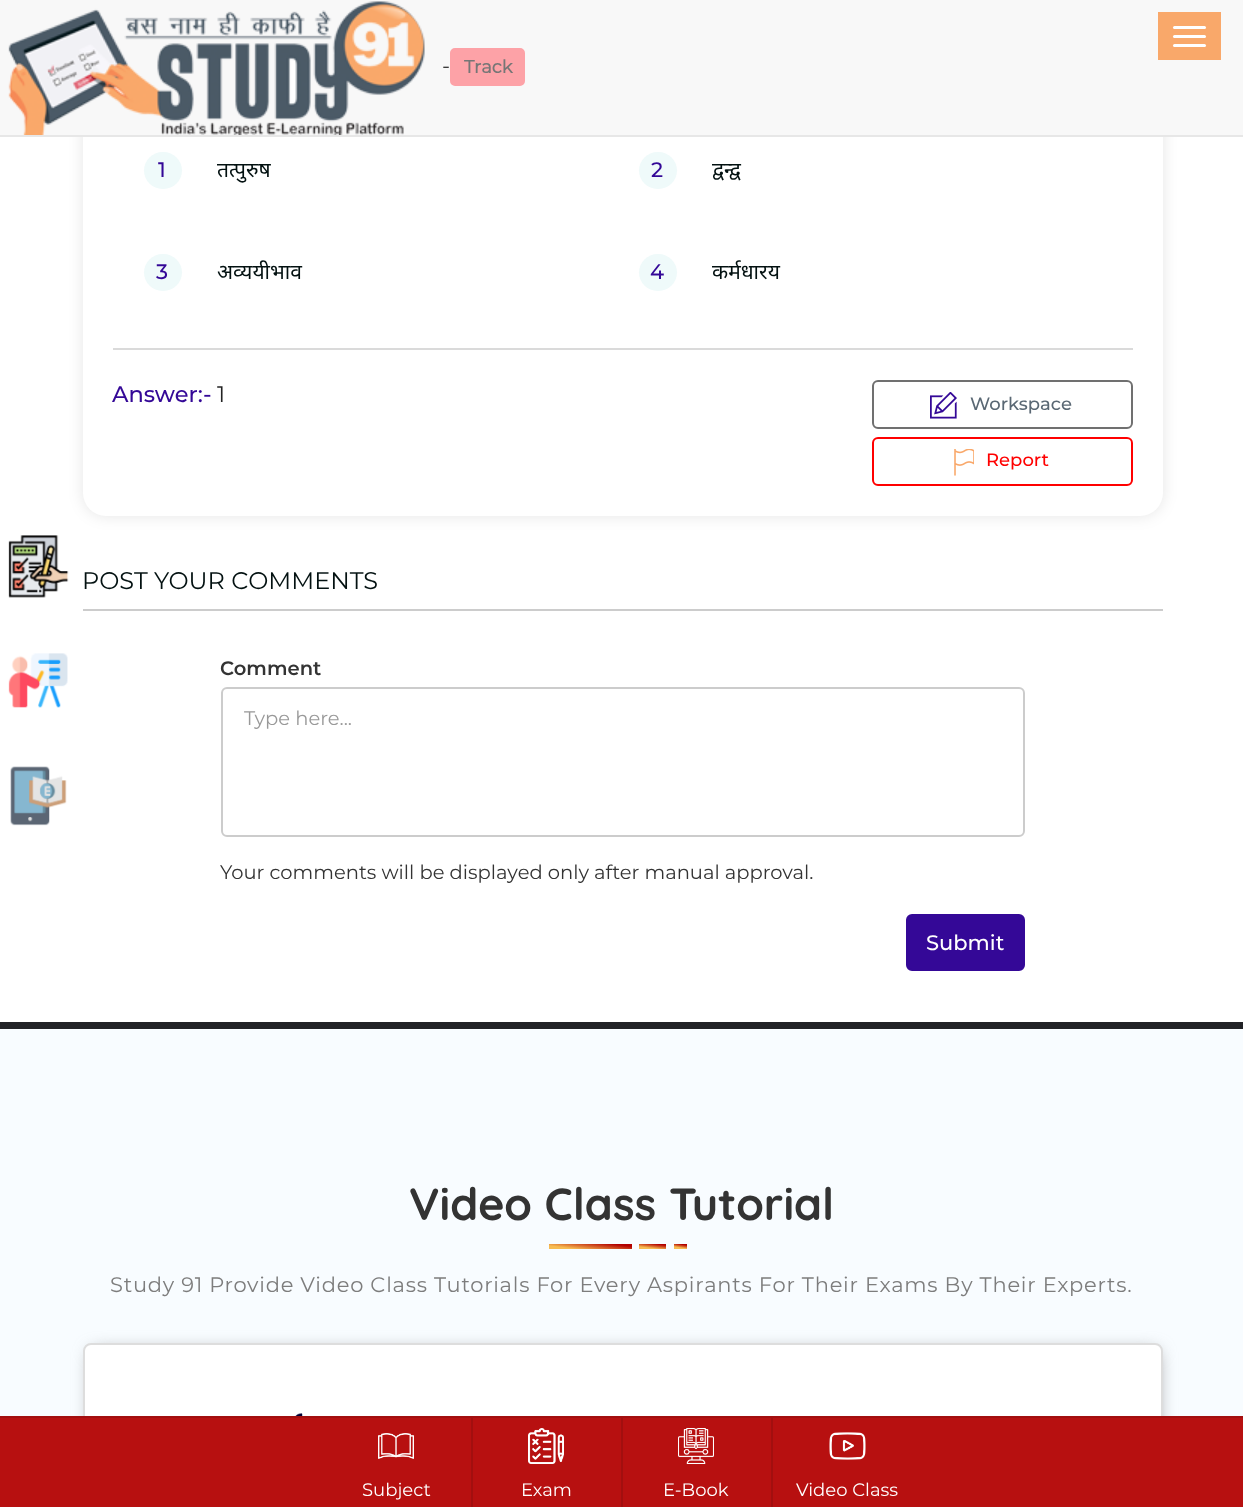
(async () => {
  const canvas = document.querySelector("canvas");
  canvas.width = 1243;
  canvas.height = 1507;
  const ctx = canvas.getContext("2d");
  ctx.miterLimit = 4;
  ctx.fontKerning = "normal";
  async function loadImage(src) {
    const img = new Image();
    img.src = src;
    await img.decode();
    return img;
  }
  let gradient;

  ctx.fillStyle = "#ffffff";
  ctx.fillRect(0, 0, 1243, 1507);
  ctx.fillStyle = "rgba(0, 0, 0, 0.1)";
  ctx.filter = "blur(7.5px)";
  ctx.beginPath();
  ctx.roundRect(83, 77, 1080, 439, 23);
  ctx.fill();
  ctx.filter = "none";
  ctx.fillStyle = "#ffffff";
  ctx.beginPath();
  ctx.roundRect(83, 77, 1080, 439, 23);
  ctx.fill();
  for (const [x, y, w, h, color] of [
    [0, 0, 1243, 135, "#f8f8f8"],
    [0, 135, 1243, 2, "#e7e7e7"],
    [1158, 12, 63, 48, "#f9a86a"],
  ]) {
    ctx.fillStyle = color;
    ctx.fillRect(x, y, w, h);
  }
  ctx.fillStyle = "#ffffff";
  ctx.beginPath();
  ctx.roundRect(1173, 26, 33, 3, 1.5);
  ctx.fill();
  ctx.beginPath();
  ctx.roundRect(1173, 35, 33, 3, 1.5);
  ctx.fill();
  ctx.beginPath();
  ctx.roundRect(1173, 44, 33, 3, 1.5);
  ctx.fill();
  ctx.drawImage(await loadImage("img/1.png"), 8, 1, 417, 134);
  ctx.fillStyle = "#fda2a7";
  ctx.beginPath();
  ctx.roundRect(451, 49, 73, 36, 4);
  ctx.fill();
  ctx.strokeStyle = "#fda2a7";
  ctx.lineWidth = 2;
  ctx.stroke();
  ctx.drawImage(await loadImage("img/2.png"), 8, 535, 61, 63);
  ctx.drawImage(await loadImage("img/3.png"), 8, 653, 60, 55);
  ctx.drawImage(await loadImage("img/4.png"), 10, 766, 57, 60);
  ctx.fillStyle = "#effafa";
  ctx.beginPath();
  ctx.roundRect(144, 152, 38, 37, 18.5);
  ctx.fill();
  ctx.beginPath();
  ctx.roundRect(639, 152, 38, 37, 18.5);
  ctx.fill();
  ctx.beginPath();
  ctx.roundRect(144, 254, 38, 37, 18.5);
  ctx.fill();
  ctx.beginPath();
  ctx.roundRect(639, 254, 38, 37, 18.5);
  ctx.fill();
  ctx.fillStyle = "#dadada";
  ctx.fillRect(113, 348, 1020, 2);
  ctx.beginPath();
  ctx.roundRect(873, 381, 259, 47, 5);
  ctx.strokeStyle = "#707070";
  ctx.stroke();
  ctx.drawImage(await loadImage("img/5.png"), 930, 392, 27, 27);
  ctx.beginPath();
  ctx.roundRect(873, 438, 259, 47, 5);
  ctx.strokeStyle = "#ff0000";
  ctx.stroke();
  ctx.drawImage(await loadImage("img/6.png"), 954, 449, 20, 27);
  ctx.fillStyle = "#cccccc";
  ctx.fillRect(83, 609, 1080, 2);
  ctx.beginPath();
  ctx.roundRect(222, 688, 802, 148, 5);
  ctx.strokeStyle = "#cccccc";
  ctx.stroke();
  ctx.fillStyle = "#340897";
  ctx.beginPath();
  ctx.roundRect(907, 915, 117, 55, 5);
  ctx.fill();
  ctx.strokeStyle = "#340897";
  ctx.stroke();
  ctx.fillStyle = "#212226";
  ctx.fillRect(0, 1022, 1243, 7);
  ctx.fillStyle = "#f8fcff";
  ctx.fillRect(0, 1029, 1243, 387);
  gradient = ctx.createLinearGradient(589, 1254, 591, 1238);
  gradient.addColorStop(0.2, "#f7bc52");
  gradient.addColorStop(0.8, "#b20000");
  ctx.fillStyle = gradient;
  ctx.fillRect(549, 1244, 83, 5);
  gradient = ctx.createLinearGradient(652, 1250, 653, 1242);
  gradient.addColorStop(0.2, "#f7bc52");
  gradient.addColorStop(0.8, "#b20000");
  ctx.fillStyle = gradient;
  ctx.fillRect(639, 1244, 27, 5);
  gradient = ctx.createLinearGradient(680, 1249, 681, 1243);
  gradient.addColorStop(0.2, "#f7bc52");
  gradient.addColorStop(0.8, "#b20000");
  ctx.fillStyle = gradient;
  ctx.fillRect(674, 1244, 13, 5);
  ctx.fillStyle = "#888888";
  ctx.filter = "blur(9px)";
  ctx.beginPath();
  ctx.rect(92, 1352, 1065, 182);
  ctx.fill();
  ctx.filter = "none";
  ctx.fillStyle = "#ffffff";
  ctx.beginPath();
  ctx.roundRect(84, 1344, 1078, 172, 7);
  ctx.fill();
  ctx.strokeStyle = "#dddddd";
  ctx.stroke();
  ctx.drawImage(await loadImage("img/7.png"), 295, 1413, 8, 3);
  for (const [x, y, w, h, color] of [
    [0, 1418, 1243, 89, "#b71010"],
    [0, 1416, 1243, 2, "#a20f0f"],
    [471, 1418, 2, 89, "#a20f0f"],
  ]) {
    ctx.fillStyle = color;
    ctx.fillRect(x, y, w, h);
  }
  ctx.drawImage(await loadImage("img/8.png"), 378, 1433, 36, 26);
  ctx.fillRect(621, 1418, 2, 89);
  ctx.drawImage(await loadImage("img/9.png"), 528, 1428, 36, 36);
  ctx.fillRect(771, 1418, 2, 89);
  ctx.drawImage(await loadImage("img/10.png"), 678, 1428, 36, 36);
  ctx.drawImage(await loadImage("img/11.png"), 829, 1432, 37, 28);
  ctx.font = "21px Montserrat";
  ctx.fillStyle = "#333333";
  ctx.fillText("-", 442, 73);
  ctx.font = "bold 18px Montserrat";
  ctx.fillStyle = "#767676";
  ctx.fillText("Track", 464, 73);
  ctx.font = "500 21px Montserrat";
  ctx.fillStyle = "#340897";
  ctx.fillText("1", 158, 177);
  ctx.font = "21px Noto Sans";
  ctx.fillStyle = "#031111";
  ctx.fillText("तत्पुरुष", 217, 177);
  ctx.font = "500 21px Montserrat";
  ctx.fillStyle = "#340897";
  ctx.fillText("2", 651, 177);
  ctx.font = "21px Noto Sans";
  ctx.fillStyle = "#031111";
  ctx.fillText("द्वन्द्व", 712, 177);
  ctx.font = "500 21px Montserrat";
  ctx.fillStyle = "#340897";
  ctx.fillText("3", 156, 279);
  ctx.font = "21px Noto Sans";
  ctx.fillStyle = "#031111";
  ctx.fillText("अव्ययीभाव", 217, 279);
  ctx.font = "500 21px Montserrat";
  ctx.fillStyle = "#340897";
  ctx.fillText("4", 650, 279);
  ctx.font = "21px Noto Sans";
  ctx.fillStyle = "#031111";
  ctx.fillText("कर्मधारय", 712, 279);
  ctx.font = "500 22.5px Montserrat";
  ctx.fillStyle = "#340897";
  ctx.fillText("Answer:-", 112, 402);
  ctx.font = "22.5px Montserrat";
  ctx.fillStyle = "#232323";
  ctx.fillText("1", 217, 402);
  ctx.font = "500 18px Montserrat";
  ctx.fillStyle = "#5a6874";
  ctx.fillText("Workspace", 970, 410);
  ctx.fillStyle = "#ff0000";
  ctx.fillText("Report", 986, 466);
  ctx.font = "24px Montserrat";
  ctx.fillStyle = "#031111";
  ctx.fillText("POST YOUR COMMENTS", 82, 589);
  ctx.font = "600 19.5px Montserrat";
  ctx.fillStyle = "#333333";
  ctx.fillText("Comment", 220, 675);
  ctx.font = "19.5px Montserrat";
  ctx.fillStyle = "#999999";
  ctx.fillText("Type here...", 244, 725);
  ctx.fillStyle = "#333333";
  ctx.fillText("Your comments will be displayed only after manual approval.", 220, 879);
  ctx.font = "500 21px Montserrat";
  ctx.fillStyle = "#ffffff";
  ctx.fillText("Submit", 926, 950);
  ctx.font = "bold 45px Quicksand";
  ctx.fillStyle = "#333333";
  ctx.fillText("Video Class Tutorial", 409, 1220);
  ctx.letterSpacing = "0.75px";
  ctx.font = "21px Montserrat";
  ctx.fillStyle = "#7d7d7d";
  ctx.fillText("Study 91 Provide Video Class Tutorials For Every Aspirants For Their Exams By Their Experts.", 110, 1292);
  ctx.letterSpacing = "0px";
  ctx.font = "18px Montserrat";
  ctx.fillStyle = "#ffffff";
  for (const [text, x, y] of [
    ["Subject", 362, 1496],
    ["Exam", 521, 1496],
    ["E-Book", 663, 1496],
    ["Video Class", 796, 1496],
  ]) {
    ctx.fillText(text, x, y);
  }
})();
